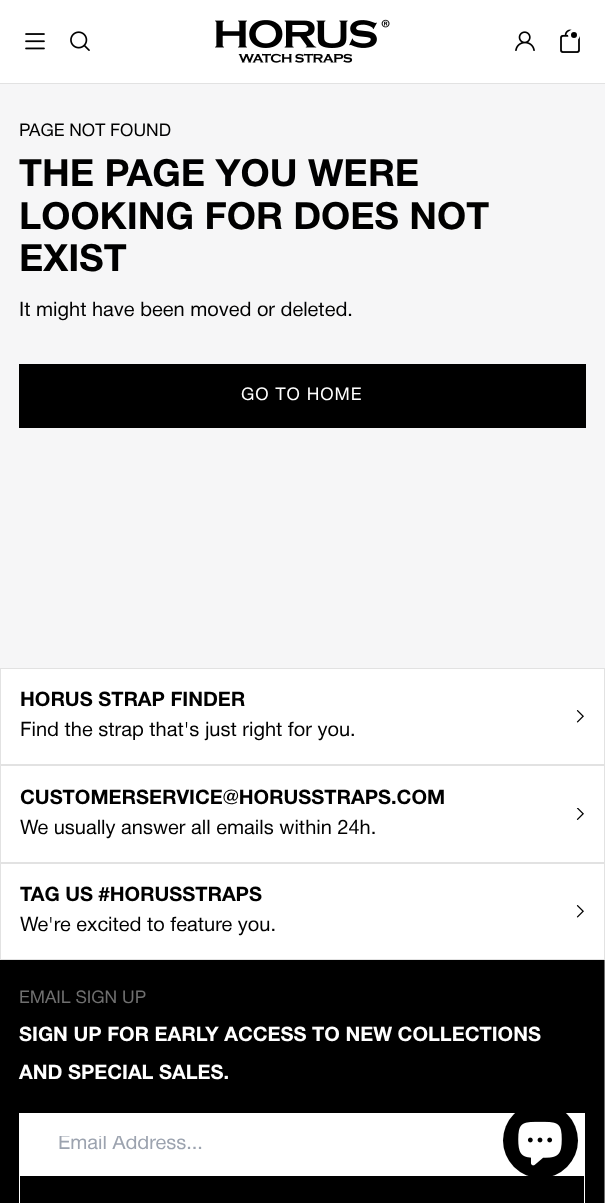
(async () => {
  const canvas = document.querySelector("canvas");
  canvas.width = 605;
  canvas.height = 1203;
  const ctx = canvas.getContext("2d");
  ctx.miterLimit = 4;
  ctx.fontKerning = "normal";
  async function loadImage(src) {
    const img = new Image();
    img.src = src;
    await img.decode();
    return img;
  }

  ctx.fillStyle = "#f6f6f7";
  ctx.fillRect(0, 0, 605, 1203);
  ctx.fillStyle = "#ffffff";
  ctx.fillRect(0, 0, 605, 83);
  ctx.fillStyle = "#e2e2e2";
  ctx.fillRect(0, 83, 605, 1);
  ctx.drawImage(await loadImage("img/1.png"), 25, 33, 20, 17);
  ctx.drawImage(await loadImage("img/2.png"), 70, 31, 20, 20);
  ctx.drawImage(await loadImage("img/3.png"), 215, 19, 175, 44);
  ctx.drawImage(await loadImage("img/4.png"), 515, 31, 20, 20);
  ctx.drawImage(await loadImage("img/5.png"), 560, 29, 20, 24);
  ctx.fillStyle = "#000000";
  ctx.beginPath();
  ctx.arc(574, 35, 4.5, 0, Math.PI * 2);
  ctx.fill();
  ctx.strokeStyle = "#ffffff";
  ctx.lineWidth = 3;
  ctx.stroke();
  ctx.fillRect(19, 364, 567, 64);
  ctx.fillStyle = "#ffffff";
  ctx.fillRect(1, 669, 603, 290);
  ctx.strokeStyle = "#e2e2e2";
  ctx.lineWidth = 1;
  ctx.strokeRect(0.5, 668.5, 604, 96);
  ctx.drawImage(await loadImage("img/6.png"), 576, 710, 8, 13);
  ctx.strokeRect(0.5, 765.5, 604, 97);
  ctx.drawImage(await loadImage("img/7.png"), 576, 808, 8, 12);
  ctx.strokeRect(0.5, 863.5, 604, 96);
  ctx.drawImage(await loadImage("img/6.png"), 576, 905, 8, 13);
  ctx.fillStyle = "#000000";
  ctx.fillRect(0, 960, 604, 243);
  ctx.fillStyle = "#6f6f6f";
  ctx.fillRect(604, 960, 1, 243);
  ctx.strokeStyle = "#ffffff";
  ctx.strokeRect(19.5, 1113.5, 565, 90);
  ctx.fillStyle = "#ffffff";
  ctx.fillRect(20, 1114, 564, 62);
  ctx.fillStyle = "#000000";
  ctx.beginPath();
  ctx.arc(540.5, 1140.5, 37.5, 0, Math.PI * 2);
  ctx.fill();
  ctx.drawImage(await loadImage("img/8.png"), 518, 1121, 44, 45);
  ctx.font = "17.5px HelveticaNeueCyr";
  ctx.fillText("PAGE NOT FOUND", 19, 136);
  ctx.font = "bold 37.5px HelveticaNeueCyr";
  for (const [text, x, y] of [
    ["THE PAGE YOU WERE", 19, 186],
    ["LOOKING FOR DOES NOT", 19, 229],
    ["EXIST", 19, 271],
  ]) {
    ctx.fillText(text, x, y);
  }
  ctx.font = "20px HelveticaNeueCyr";
  ctx.fillText("It might have been moved or deleted.", 19, 316);
  ctx.letterSpacing = "1px";
  ctx.font = "17.5px HelveticaNeueCyr";
  ctx.fillStyle = "#ffffff";
  ctx.fillText("GO TO HOME", 241, 400);
  ctx.letterSpacing = "0px";
  ctx.font = "bold 20px HelveticaNeueCyr";
  ctx.fillStyle = "#000000";
  ctx.fillText("HORUS STRAP FINDER", 20, 706);
  ctx.font = "20px HelveticaNeueCyr";
  ctx.fillText("Find the strap that's just right for you.", 20, 736);
  ctx.font = "bold 20px HelveticaNeueCyr";
  ctx.fillText("CUSTOMERSERVICE@HORUSSTRAPS.COM", 20, 804);
  ctx.font = "20px HelveticaNeueCyr";
  ctx.fillText("We usually answer all emails within 24h.", 20, 834);
  ctx.font = "bold 20px HelveticaNeueCyr";
  ctx.fillText("TAG US #HORUSSTRAPS", 20, 901);
  ctx.font = "20px HelveticaNeueCyr";
  ctx.fillText("We're excited to feature you.", 20, 931);
  ctx.font = "17.5px HelveticaNeueCyr";
  ctx.fillStyle = "#6f6f6f";
  ctx.fillText("EMAIL SIGN UP", 19, 1003);
  ctx.font = "bold 20px HelveticaNeueCyr";
  ctx.fillStyle = "#ffffff";
  ctx.fillText("SIGN UP FOR EARLY ACCESS TO NEW COLLECTIONS", 19, 1041);
  ctx.fillText("AND SPECIAL SALES.", 19, 1079);
  ctx.save();
  ctx.beginPath();
  ctx.rect(58, 1136, 488, 19);
  ctx.clip();
  ctx.font = "20px HelveticaNeueCyr";
  ctx.fillStyle = "#9ca3af";
  ctx.fillText("Email Address...", 58, 1149);
  ctx.restore();
})();
